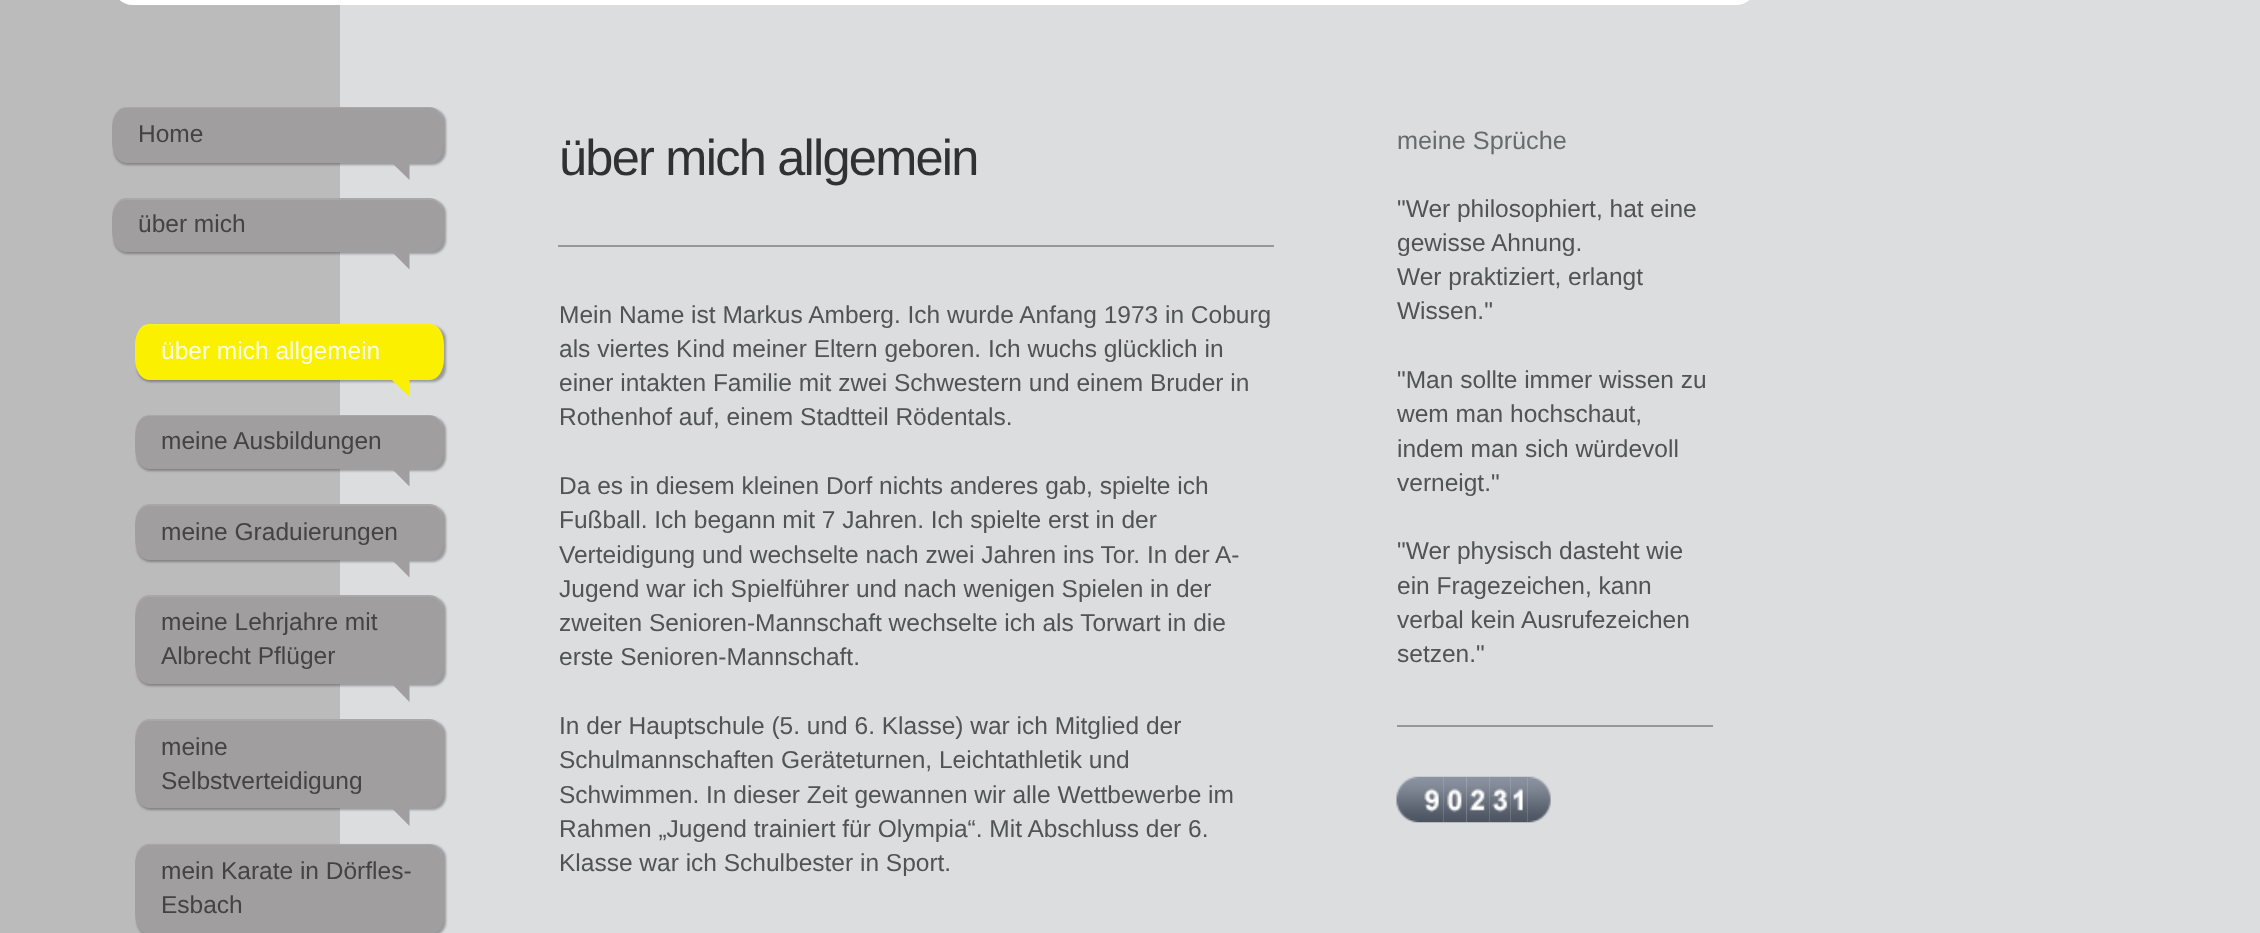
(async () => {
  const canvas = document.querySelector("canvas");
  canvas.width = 2260;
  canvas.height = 933;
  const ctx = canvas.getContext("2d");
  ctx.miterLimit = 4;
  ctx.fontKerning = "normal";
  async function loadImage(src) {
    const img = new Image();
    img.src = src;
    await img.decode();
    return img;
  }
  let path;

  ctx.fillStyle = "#bbbbbb";
  ctx.fillRect(0, 0, 2260, 933);
  ctx.fillStyle = "#dbddde";
  ctx.fillRect(340, 0, 1920, 933);
  ctx.beginPath();
  ctx.roundRect(121, -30, 1627, 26, 12);
  ctx.strokeStyle = "#ffffff";
  ctx.lineWidth = 18;
  ctx.stroke();
  ctx.fillStyle = "rgba(0, 0, 0, 0.3)";
  ctx.filter = "blur(1px)";
  ctx.beginPath();
  ctx.roundRect(114, 109, 332, 56, 14);
  ctx.fill();
  ctx.filter = "none";
  ctx.fillStyle = "#a09e9e";
  path = new Path2D("M126 107H430C438 107 444 116 444 128V142C444 153 438 163 430 163H126C118 163 112 153 112 142V128C112 116 118 107 126 107Z");
  ctx.fill(path);
  ctx.fillStyle = "rgba(255, 255, 255, 0.1)";
  path = new Path2D("M126 108H430C438 108 444 118 444 130V144L443 150C444 147 444 145 444 142V128C444 116 438 107 430 107H126C118 107 112 116 112 128V130C112 118 118 108 126 108Z");
  ctx.fill(path);
  ctx.fillStyle = "#a09e9e";
  path = new Path2D("M392 163H409.5V180Z");
  ctx.fill(path);
  ctx.fillStyle = "rgba(0, 0, 0, 0.3)";
  ctx.filter = "blur(1px)";
  ctx.beginPath();
  ctx.roundRect(114, 200, 332, 54, 14);
  ctx.fill();
  ctx.filter = "none";
  ctx.fillStyle = "#a09e9e";
  path = new Path2D("M126 198H430C438 198 444 207 444 219V231C444 243 438 252 430 252H126C118 252 112 243 112 231V219C112 207 118 198 126 198Z");
  ctx.fill(path);
  ctx.fillStyle = "rgba(255, 255, 255, 0.1)";
  path = new Path2D("M126 200H430C438 200 444 209 444 220V233L443 240C444 237 444 234 444 231V219C444 207 438 198 430 198H126C118 198 112 207 112 219V220C112 209 118 200 126 200Z");
  ctx.fill(path);
  ctx.fillStyle = "#a09e9e";
  path = new Path2D("M392 252H409.5V269.5Z");
  ctx.fill(path);
  ctx.fillStyle = "rgba(0, 0, 0, 0.3)";
  ctx.filter = "blur(1px)";
  ctx.beginPath();
  ctx.roundRect(137, 326, 309, 56, 14);
  ctx.fill();
  ctx.filter = "none";
  ctx.fillStyle = "#faf000";
  path = new Path2D("M149 324H430C438 324 444 333 444 345V359C444 370 438 380 430 380H149C141 380 135 370 135 359V345C135 333 141 324 149 324Z");
  ctx.fill(path);
  ctx.fillStyle = "rgba(255, 255, 255, 0.1)";
  path = new Path2D("M149 326H430C438 326 444 335 444 346V360L443 368C444 365 444 362 444 359V345C444 333 438 324 430 324H149C141 324 135 333 135 345V359V365V353C135 344 136 326 149 326Z");
  ctx.fill(path);
  ctx.fillStyle = "#faf000";
  path = new Path2D("M392 380H409.5V397Z");
  ctx.fill(path);
  ctx.fillStyle = "rgba(0, 0, 0, 0.3)";
  ctx.filter = "blur(1px)";
  ctx.beginPath();
  ctx.roundRect(137, 417, 309, 54, 14);
  ctx.fill();
  ctx.filter = "none";
  ctx.fillStyle = "#a09e9e";
  path = new Path2D("M149 415H430C438 415 444 424 444 436V448C444 460 438 469 430 469H149C141 469 135 460 135 448V436C135 424 141 415 149 415Z");
  ctx.fill(path);
  ctx.fillStyle = "rgba(255, 255, 255, 0.1)";
  path = new Path2D("M149 416H430C438 416 444 426 444 438V450L443 457C445 451 444 444 444 438C444 429 442 415 430 415H149C138 415 135 429 135 438V453C134 442 134 416 149 416Z");
  ctx.fill(path);
  ctx.fillStyle = "#a09e9e";
  path = new Path2D("M392 469H409.5V486.5Z");
  ctx.fill(path);
  ctx.fillStyle = "rgba(0, 0, 0, 0.3)";
  ctx.filter = "blur(1px)";
  ctx.beginPath();
  ctx.roundRect(137, 506, 309, 56, 14);
  ctx.fill();
  ctx.filter = "none";
  ctx.fillStyle = "#a09e9e";
  path = new Path2D("M149 504H430C438 504 444 513 444 525V539C444 551 438 560 430 560H149C141 560 135 551 135 539V525C135 513 141 504 149 504Z");
  ctx.fill(path);
  ctx.fillStyle = "rgba(255, 255, 255, 0.1)";
  path = new Path2D("M149 506H430C438 506 444 515 444 527V541L443 548C445 541 444 534 444 527C444 519 442 504 430 504H149C137 504 135 519 135 527V544C134 533 133 506 149 506Z");
  ctx.fill(path);
  ctx.fillStyle = "#a09e9e";
  path = new Path2D("M392 560H409.5V577.5Z");
  ctx.fill(path);
  ctx.fillStyle = "rgba(0, 0, 0, 0.3)";
  ctx.filter = "blur(1px)";
  ctx.beginPath();
  ctx.roundRect(137, 597, 309, 89, 14);
  ctx.fill();
  ctx.filter = "none";
  ctx.fillStyle = "#a09e9e";
  path = new Path2D("M149 595H430C438 595 444 604 444 616V663C444 675 438 684 430 684H149C141 684 135 675 135 663V616C135 604 141 595 149 595Z");
  ctx.fill(path);
  ctx.fillStyle = "rgba(255, 255, 255, 0.1)";
  path = new Path2D("M149 597H430C438 597 444 606 444 618V665L443 672C444 669 444 666 444 663V616C444 604 438 595 430 595H149C141 595 135 604 135 616V663V668V626C135 617 135 597 149 597Z");
  ctx.fill(path);
  ctx.fillStyle = "#a09e9e";
  path = new Path2D("M392 684H409.5V702Z");
  ctx.fill(path);
  ctx.fillStyle = "rgba(0, 0, 0, 0.3)";
  ctx.filter = "blur(1px)";
  ctx.beginPath();
  ctx.roundRect(137, 721, 309, 89, 14);
  ctx.fill();
  ctx.filter = "none";
  ctx.fillStyle = "#a09e9e";
  path = new Path2D("M149 719H430C438 719 444 729 444 740V788C444 799 438 808 430 808H149C141 808 135 799 135 788V740C135 729 141 719 149 719Z");
  ctx.fill(path);
  ctx.fillStyle = "rgba(255, 255, 255, 0.1)";
  path = new Path2D("M149 721H430C438 721 444 730 444 742V789L443 797C444 794 444 791 444 788V740C444 729 438 719 430 719H149C141 719 135 729 135 740V788V793V750C135 741 135 721 149 721Z");
  ctx.fill(path);
  ctx.fillStyle = "#a09e9e";
  path = new Path2D("M392 808.5H409.5V826Z");
  ctx.fill(path);
  ctx.fillStyle = "rgba(0, 0, 0, 0.3)";
  ctx.filter = "blur(1px)";
  ctx.beginPath();
  ctx.roundRect(137, 845, 309, 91, 14);
  ctx.fill();
  ctx.filter = "none";
  ctx.fillStyle = "#a09e9e";
  path = new Path2D("M149 844H430C438 844 444 853 444 864V914C444 925 438 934 430 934H149C141 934 135 925 135 914V864C135 853 141 844 149 844Z");
  ctx.fill(path);
  ctx.fillStyle = "rgba(255, 255, 255, 0.1)";
  path = new Path2D("M149 845H430C438 845 444 855 444 866V915L443 923C444 920 444 917 444 914V864C444 853 438 844 430 844H149C141 844 135 853 135 864V914V919V862C136 855 141 845 149 845Z");
  ctx.fill(path);
  ctx.fillStyle = "#93999c";
  ctx.fillRect(558, 245, 716, 2);
  ctx.fillRect(1397, 725, 316, 2);
  ctx.drawImage(await loadImage("img/1.png"), 1396, 776, 25, 47);
  ctx.drawImage(await loadImage("img/2.png"), 1421, 776, 23, 47);
  ctx.drawImage(await loadImage("img/3.png"), 1443, 776, 24, 47);
  ctx.drawImage(await loadImage("img/4.png"), 1466, 776, 24, 47);
  ctx.drawImage(await loadImage("img/5.png"), 1489, 776, 22, 47);
  ctx.drawImage(await loadImage("img/6.png"), 1510, 776, 18, 47);
  ctx.drawImage(await loadImage("img/7.png"), 1527, 776, 24, 47);
  ctx.font = "24.5px Liberation Sans";
  ctx.fillStyle = "#444343";
  ctx.fillText("Home", 138, 142);
  ctx.fillText("über mich", 138, 232);
  ctx.fillStyle = "#fffee6";
  ctx.fillText("über mich allgemein", 161, 359);
  ctx.fillStyle = "#444343";
  for (const [text, x, y] of [
    ["meine Ausbildungen", 161, 449],
    ["meine Graduierungen", 161, 540],
    ["meine Lehrjahre mit", 161, 630],
    ["Albrecht Pflüger", 161, 664],
    ["meine", 161, 755],
    ["Selbstverteidigung", 161, 789],
    ["mein Karate in Dörfles-", 161, 879],
    ["Esbach", 161, 913],
  ]) {
    ctx.fillText(text, x, y);
  }
  ctx.letterSpacing = "-1.75px";
  ctx.font = "50.5px Liberation Sans";
  ctx.fillStyle = "#2f3132";
  ctx.fillText("über mich allgemein", 559, 175);
  ctx.letterSpacing = "0px";
  ctx.font = "24.5px Liberation Sans";
  ctx.fillStyle = "#505456";
  for (const [text, x, y] of [
    ["Mein Name ist Markus Amberg. Ich wurde Anfang 1973 in Coburg", 559, 323],
    ["als viertes Kind meiner Eltern geboren. Ich wuchs glücklich in", 559, 357],
    ["einer intakten Familie mit zwei Schwestern und einem Bruder in", 559, 391],
    ["Rothenhof auf, einem Stadtteil Rödentals.", 559, 425],
    ["Da es in diesem kleinen Dorf nichts anderes gab, spielte ich", 559, 494],
    ["Fußball. Ich begann mit 7 Jahren. Ich spielte erst in der", 559, 528],
    ["Verteidigung und wechselte nach zwei Jahren ins Tor. In der A-", 559, 563],
    ["Jugend war ich Spielführer und nach wenigen Spielen in der", 559, 597],
    ["zweiten Senioren-Mannschaft wechselte ich als Torwart in die", 559, 631],
    ["erste Senioren-Mannschaft.", 559, 665],
    ["In der Hauptschule (5. und 6. Klasse) war ich Mitglied der", 559, 734],
    ["Schulmannschaften Geräteturnen, Leichtathletik und", 559, 768],
    ["Schwimmen. In dieser Zeit gewannen wir alle Wettbewerbe im", 559, 803],
    ["Rahmen „Jugend trainiert für Olympia“. Mit Abschluss der 6.", 559, 837],
    ["Klasse war ich Schulbester in Sport.", 559, 871],
  ]) {
    ctx.fillText(text, x, y);
  }
  ctx.font = "25.25px Liberation Sans";
  ctx.fillStyle = "#666b6e";
  ctx.fillText("meine Sprüche", 1397, 149);
  ctx.font = "24.5px Liberation Sans";
  ctx.fillStyle = "#505456";
  for (const [text, x, y] of [
    ["\"Wer philosophiert, hat eine", 1397, 217],
    ["gewisse Ahnung.", 1397, 251],
    ["Wer praktiziert, erlangt", 1397, 285],
    ["Wissen.\"", 1397, 319],
    ["\"Man sollte immer wissen zu", 1397, 388],
    ["wem man hochschaut,", 1397, 422],
    ["indem man sich würdevoll", 1397, 457],
    ["verneigt.\"", 1397, 491],
    ["\"Wer physisch dasteht wie", 1397, 559],
    ["ein Fragezeichen, kann", 1397, 594],
    ["verbal kein Ausrufezeichen", 1397, 628],
    ["setzen.\"", 1397, 662],
  ]) {
    ctx.fillText(text, x, y);
  }
})();
